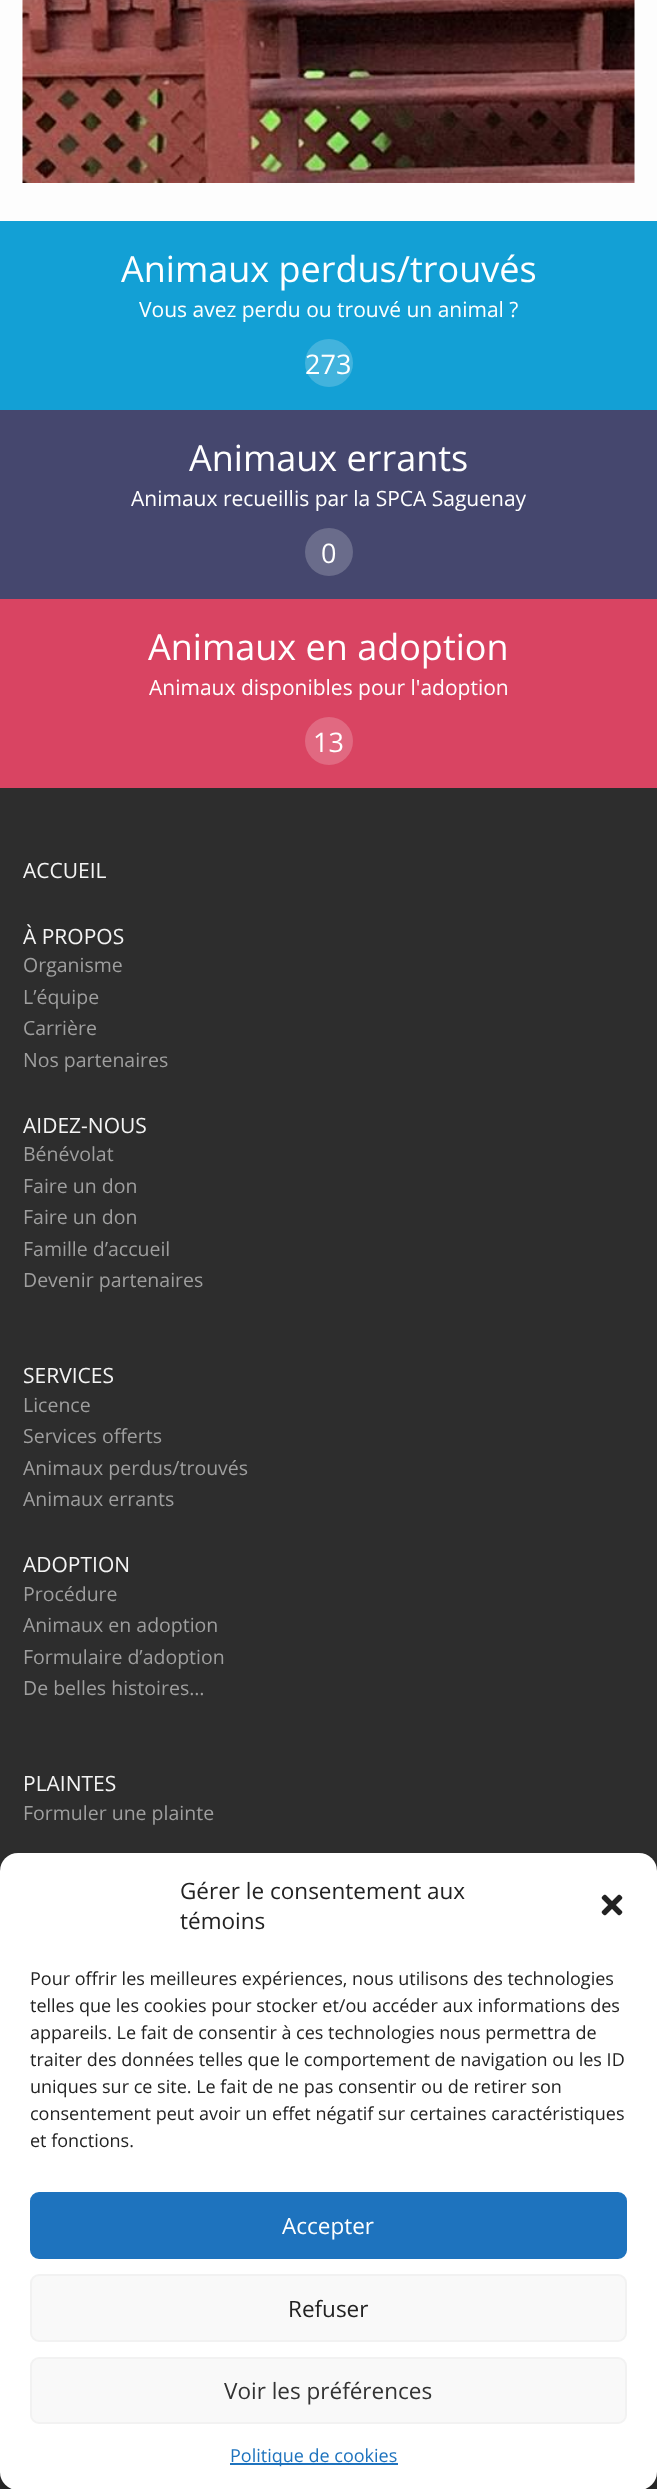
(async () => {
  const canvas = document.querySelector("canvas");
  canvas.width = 657;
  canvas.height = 2489;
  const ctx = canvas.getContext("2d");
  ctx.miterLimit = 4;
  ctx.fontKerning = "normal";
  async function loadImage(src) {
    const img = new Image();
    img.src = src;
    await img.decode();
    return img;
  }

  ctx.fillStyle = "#fdfdfd";
  ctx.fillRect(0, 0, 657, 2489);
  ctx.drawImage(await loadImage("img/1.png"), 22, 0, 613, 183);
  ctx.fillStyle = "#13a0d5";
  ctx.fillRect(0, 221, 657, 189);
  ctx.fillStyle = "#42b3dd";
  ctx.beginPath();
  ctx.arc(329, 363, 24, 0, Math.PI * 2);
  ctx.fill();
  ctx.fillStyle = "#45476e";
  ctx.fillRect(0, 410, 657, 189);
  ctx.fillStyle = "#6a6c8b";
  ctx.beginPath();
  ctx.arc(329, 552, 24, 0, Math.PI * 2);
  ctx.fill();
  ctx.fillStyle = "#d94462";
  ctx.fillRect(0, 599, 657, 189);
  ctx.fillStyle = "#e16981";
  ctx.beginPath();
  ctx.arc(329, 741, 24, 0, Math.PI * 2);
  ctx.fill();
  ctx.fillStyle = "#2d2d2d";
  ctx.fillRect(0, 788, 657, 1701);
  ctx.fillStyle = "rgba(0, 0, 0, 0.23)";
  ctx.filter = "blur(4.5px)";
  ctx.beginPath();
  ctx.roundRect(0, 1862, 657, 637, 18);
  ctx.fill();
  ctx.filter = "none";
  ctx.fillStyle = "#ffffff";
  ctx.beginPath();
  ctx.roundRect(0, 1853, 657, 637, 18);
  ctx.fill();
  ctx.drawImage(await loadImage("img/2.png"), 601, 1894, 22, 22);
  ctx.fillStyle = "#1e73be";
  ctx.beginPath();
  ctx.roundRect(31, 2193, 595, 65, 8);
  ctx.fill();
  ctx.strokeStyle = "#1e73be";
  ctx.lineWidth = 2;
  ctx.stroke();
  ctx.fillStyle = "#f9f9f9";
  ctx.beginPath();
  ctx.roundRect(31, 2275, 595, 66, 8);
  ctx.fill();
  ctx.strokeStyle = "#f2f2f2";
  ctx.stroke();
  ctx.beginPath();
  ctx.roundRect(31, 2358, 595, 65, 8);
  ctx.fill();
  ctx.stroke();
  ctx.fillStyle = "#1e73be";
  ctx.fillRect(230, 2463, 168, 2);
  ctx.font = "36px Open Sans";
  ctx.fillStyle = "#ffffff";
  ctx.fillText("Animaux perdus/trouvés", 121, 282);
  ctx.font = "21px Open Sans";
  ctx.fillText("Vous avez perdu ou trouvé un animal ?", 139, 317);
  ctx.font = "27px Open Sans";
  ctx.fillText("273", 305, 374);
  ctx.font = "36px Open Sans";
  ctx.fillText("Animaux errants", 189, 471);
  ctx.font = "21px Open Sans";
  ctx.fillText("Animaux recueillis par la SPCA Saguenay", 131, 506);
  ctx.font = "27px Open Sans";
  ctx.fillText("0", 321, 563);
  ctx.font = "36px Open Sans";
  ctx.fillText("Animaux en adoption", 148, 660);
  ctx.font = "21px Open Sans";
  ctx.fillText("Animaux disponibles pour l'adoption", 149, 695);
  ctx.font = "27px Open Sans";
  ctx.fillText("13", 313, 752);
  ctx.font = "21px Open Sans";
  ctx.fillStyle = "#f4f4f4";
  ctx.fillText("ACCUEIL", 23, 878);
  ctx.fillText("À PROPOS", 23, 944);
  ctx.font = "19.5px Open Sans";
  ctx.fillStyle = "#9f9f9f";
  for (const [text, x, y] of [
    ["Organisme", 23, 972],
    ["L’équipe", 23, 1004],
    ["Carrière", 23, 1035],
    ["Nos partenaires", 23, 1067],
  ]) {
    ctx.fillText(text, x, y);
  }
  ctx.font = "21px Open Sans";
  ctx.fillStyle = "#f4f4f4";
  ctx.fillText("AIDEZ-NOUS", 23, 1133);
  ctx.font = "19.5px Open Sans";
  ctx.fillStyle = "#9f9f9f";
  for (const [text, x, y] of [
    ["Bénévolat", 23, 1161],
    ["Faire un don", 23, 1193],
    ["Faire un don", 23, 1224],
    ["Famille d’accueil", 23, 1256],
    ["Devenir partenaires", 23, 1287],
  ]) {
    ctx.fillText(text, x, y);
  }
  ctx.font = "21px Open Sans";
  ctx.fillStyle = "#f4f4f4";
  ctx.fillText("SERVICES", 23, 1383);
  ctx.font = "19.5px Open Sans";
  ctx.fillStyle = "#9f9f9f";
  for (const [text, x, y] of [
    ["Licence", 23, 1412],
    ["Services offerts", 23, 1443],
    ["Animaux perdus/trouvés", 23, 1475],
    ["Animaux errants", 23, 1506],
  ]) {
    ctx.fillText(text, x, y);
  }
  ctx.font = "21px Open Sans";
  ctx.fillStyle = "#f4f4f4";
  ctx.fillText("ADOPTION", 23, 1572);
  ctx.font = "19.5px Open Sans";
  ctx.fillStyle = "#9f9f9f";
  for (const [text, x, y] of [
    ["Procédure", 23, 1601],
    ["Animaux en adoption", 23, 1632],
    ["Formulaire d’adoption", 23, 1664],
    ["De belles histoires…", 23, 1695],
  ]) {
    ctx.fillText(text, x, y);
  }
  ctx.font = "21px Open Sans";
  ctx.fillStyle = "#f4f4f4";
  ctx.fillText("PLAINTES", 23, 1791);
  ctx.font = "19.5px Open Sans";
  ctx.fillStyle = "#9f9f9f";
  ctx.fillText("Formuler une plainte", 23, 1820);
  ctx.font = "22.5px Open Sans";
  ctx.fillStyle = "#222222";
  ctx.fillText("Gérer le consentement aux", 180, 1899);
  ctx.fillText("témoins", 180, 1929);
  ctx.font = "18px Open Sans";
  for (const [text, x, y] of [
    ["Pour offrir les meilleures expériences, nous utilisons des technologies", 30, 1985],
    ["telles que les cookies pour stocker et/ou accéder aux informations des", 30, 2012],
    ["appareils. Le fait de consentir à ces technologies nous permettra de", 30, 2039],
    ["traiter des données telles que le comportement de navigation ou les ID", 30, 2066],
    ["uniques sur ce site. Le fait de ne pas consentir ou de retirer son", 30, 2093],
    ["consentement peut avoir un effet négatif sur certaines caractéristiques", 30, 2120],
    ["et fonctions.", 30, 2147],
  ]) {
    ctx.fillText(text, x, y);
  }
  ctx.font = "22.5px Open Sans";
  ctx.fillStyle = "#ffffff";
  ctx.fillText("Accepter", 282, 2234);
  ctx.fillStyle = "#222222";
  ctx.fillText("Refuser", 288, 2317);
  ctx.fillStyle = "#333333";
  ctx.fillText("Voir les préférences", 224, 2399);
  ctx.font = "18px Open Sans";
  ctx.fillStyle = "#1e73be";
  ctx.fillText("Politique de cookies", 230, 2462);
})();
